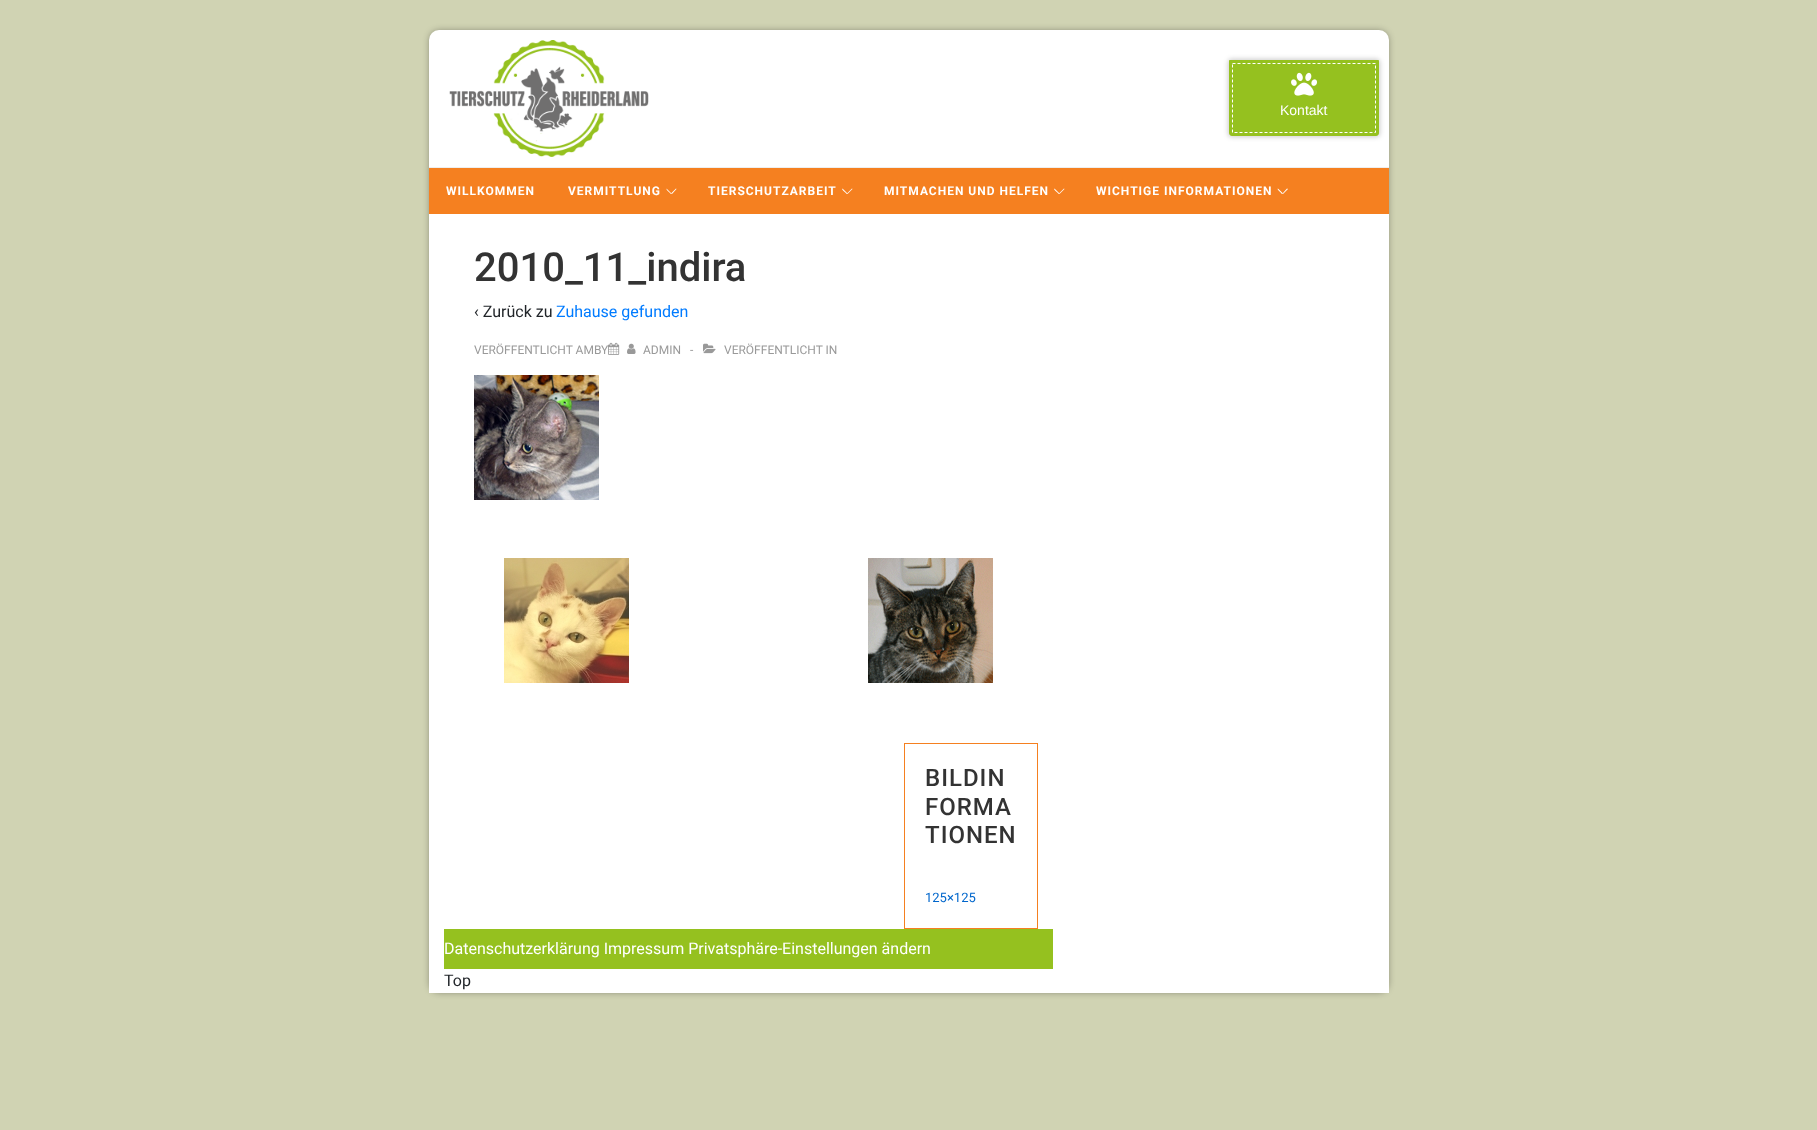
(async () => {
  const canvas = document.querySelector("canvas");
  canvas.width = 1817;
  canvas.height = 1130;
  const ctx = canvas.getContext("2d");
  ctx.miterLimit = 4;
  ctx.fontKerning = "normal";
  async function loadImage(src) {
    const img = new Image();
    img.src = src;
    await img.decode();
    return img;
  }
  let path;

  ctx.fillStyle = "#d0d3b3";
  ctx.fillRect(0, 0, 1817, 1130);
  ctx.fillStyle = "rgba(0, 0, 0, 0.39)";
  ctx.filter = "blur(3.5px)";
  ctx.beginPath();
  ctx.roundRect(430, 31, 958, 961, 9);
  ctx.fill();
  ctx.filter = "none";
  ctx.fillStyle = "#ffffff";
  ctx.beginPath();
  ctx.roundRect(429, 30, 960, 138, [10, 10, 0, 0]);
  ctx.fill();
  ctx.fillStyle = "#eeeeee";
  ctx.fillRect(429, 167, 960, 1);
  ctx.drawImage(await loadImage("img/1.png"), 449, 40, 200, 117);
  ctx.fillStyle = "rgba(0, 0, 0, 0.2)";
  ctx.filter = "blur(2.5px)";
  ctx.beginPath();
  ctx.roundRect(1228, 59, 152, 78, 4);
  ctx.fill();
  ctx.filter = "none";
  ctx.fillStyle = "#95c11f";
  ctx.beginPath();
  ctx.roundRect(1229.5, 60.5, 149, 75, [0, 0, 2.5, 2.5]);
  ctx.fill();
  ctx.strokeStyle = "#95c11f";
  ctx.stroke();
  ctx.drawImage(await loadImage("img/2.png"), 1291, 72, 26, 24);
  path = new Path2D("M1232.5 63.5H1375.5V132.5H1232.5Z");
  ctx.strokeStyle = "#ffffff";
  ctx.setLineDash([3, 2]);
  ctx.stroke(path);
  ctx.fillStyle = "#f58020";
  ctx.fillRect(429, 168, 960, 46);
  ctx.fillStyle = "#ffffff";
  path = new Path2D("M667 189L671.5 193.5L671 194C670.5 193.5 666 189.5 666.5 189C666.5 188.5 667 188.5 667 189Z");
  ctx.fill(path);
  path = new Path2D("M671 193.5L676 188.5L676.5 189L672 194Z");
  ctx.fill(path);
  path = new Path2D("M843 189L847.5 193.5L847 194C846 193.5 842 189.5 842 189C842 188.5 842.5 188.5 843 189Z");
  ctx.fill(path);
  path = new Path2D("M847 193.5L852 188.5L852.5 189L847.5 194Z");
  ctx.fill(path);
  path = new Path2D("M1055 189L1059.5 193.5L1059 194C1058 193.5 1054 189.5 1054 189C1054 188.5 1054.5 188.5 1055 189Z");
  ctx.fill(path);
  path = new Path2D("M1059 193.5L1064 188.5L1064.5 189L1059.5 194Z");
  ctx.fill(path);
  path = new Path2D("M1278.5 189L1283 193.5L1282 194C1281.5 193.5 1277.5 189.5 1277.5 189C1277.5 188.5 1278 188.5 1278.5 189Z");
  ctx.fill(path);
  path = new Path2D("M1282.5 193.5L1287 188.5L1288 189L1283 194Z");
  ctx.fill(path);
  ctx.fillRect(429, 214, 960, 779);
  ctx.drawImage(await loadImage("img/3.png"), 608, 342, 12, 13);
  ctx.drawImage(await loadImage("img/4.png"), 627, 343, 9, 11);
  ctx.drawImage(await loadImage("img/5.png"), 703, 343, 13, 11);
  ctx.drawImage(await loadImage("img/6.png"), 474, 375, 125, 125);
  ctx.drawImage(await loadImage("img/7.png"), 504, 558, 125, 125);
  ctx.drawImage(await loadImage("img/8.png"), 868, 558, 125, 125);
  ctx.strokeStyle = "#f58020";
  ctx.setLineDash([]);
  ctx.strokeRect(904.5, 743.5, 133, 185);
  ctx.fillStyle = "#95c11f";
  ctx.fillRect(444, 929, 609, 40);
  ctx.font = "14px Liberation Sans";
  ctx.fillStyle = "#ffffff";
  ctx.fillText("Kontakt", 1280, 115);
  ctx.letterSpacing = "1px";
  ctx.font = "bold 12px Roboto";
  for (const [text, x, y] of [
    ["WILLKOMMEN", 446, 195],
    ["VERMITTLUNG", 568, 195],
    ["TIERSCHUTZARBEIT", 708, 195],
    ["MITMACHEN UND HELFEN", 884, 195],
    ["WICHTIGE INFORMATIONEN", 1096, 195],
  ]) {
    ctx.fillText(text, x, y);
  }
  ctx.letterSpacing = "0px";
  ctx.font = "500 40px Roboto";
  ctx.fillStyle = "#333333";
  ctx.fillText("2010_11_indira", 474, 281);
  ctx.font = "16px Roboto";
  ctx.fillStyle = "#212529";
  ctx.fillText("‹ Zurück zu", 474, 317);
  ctx.fillStyle = "#007bff";
  ctx.fillText("Zuhause gefunden", 556, 317);
  ctx.font = "12px Roboto";
  ctx.fillStyle = "#999999";
  for (const [text, x, y] of [
    ["VERÖFFENTLICHT AMBY", 474, 354],
    ["ADMIN", 643, 354],
    ["-", 690, 354],
    ["VERÖFFENTLICHT IN", 724, 354],
  ]) {
    ctx.fillText(text, x, y);
  }
  ctx.letterSpacing = "1px";
  ctx.font = "500 24px Roboto";
  ctx.fillStyle = "#333333";
  for (const [text, x, y] of [
    ["BILDIN", 925, 786],
    ["FORMA", 925, 815],
    ["TIONEN", 925, 843],
  ]) {
    ctx.fillText(text, x, y);
  }
  ctx.letterSpacing = "0px";
  ctx.font = "13px Roboto";
  ctx.fillStyle = "#0066cc";
  ctx.fillText("125×125", 925, 902);
  ctx.font = "16px Roboto";
  ctx.fillStyle = "#ffffff";
  ctx.fillText("Datenschutzerklärung Impressum Privatsphäre-Einstellungen ändern", 444, 954);
  ctx.fillStyle = "#212529";
  ctx.fillText("Top", 444, 986);
})();
